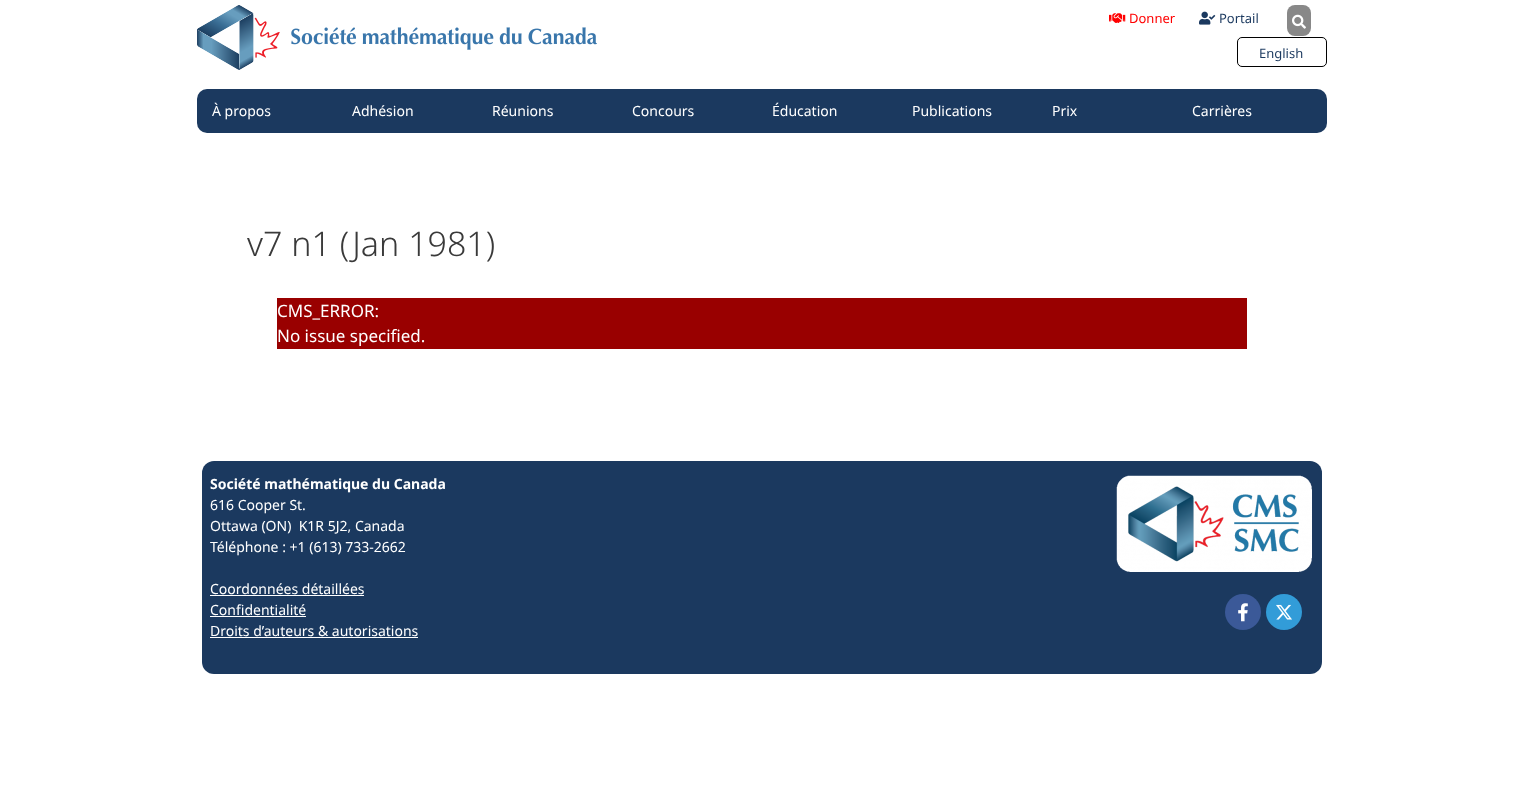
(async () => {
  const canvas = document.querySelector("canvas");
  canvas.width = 1523;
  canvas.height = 788;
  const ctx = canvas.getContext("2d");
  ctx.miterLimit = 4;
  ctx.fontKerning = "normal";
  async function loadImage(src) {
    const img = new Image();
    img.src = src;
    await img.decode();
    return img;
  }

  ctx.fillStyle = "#ffffff";
  ctx.fillRect(0, 0, 1523, 788);
  ctx.drawImage(await loadImage("img/1.png"), 197, 5, 400, 65);
  ctx.drawImage(await loadImage("img/2.png"), 1109, 13, 17, 10);
  ctx.drawImage(await loadImage("img/3.png"), 1199, 11, 17, 14);
  ctx.fillStyle = "#888888";
  ctx.beginPath();
  ctx.roundRect(1287, 5, 24, 31, 8);
  ctx.fill();
  ctx.drawImage(await loadImage("img/4.png"), 1292, 14, 14, 15);
  ctx.beginPath();
  ctx.roundRect(1237.5, 37.5, 89, 29, 4.5);
  ctx.strokeStyle = "#010101";
  ctx.stroke();
  ctx.fillStyle = "#1b395f";
  ctx.beginPath();
  ctx.roundRect(197, 89, 1130, 44, 10);
  ctx.fill();
  ctx.fillStyle = "#990000";
  ctx.fillRect(277, 298, 970, 51);
  ctx.fillStyle = "#1b395f";
  ctx.beginPath();
  ctx.roundRect(202, 461, 1120, 213, 12);
  ctx.fill();
  for (const [x, y, w, h, color] of [
    [210, 595, 154, 1, "#ffffff"],
    [210, 616, 96, 1, "#ffffff"],
    [210, 637, 208, 1, "#ffffff"],
  ]) {
    ctx.fillStyle = color;
    ctx.fillRect(x, y, w, h);
  }
  ctx.drawImage(await loadImage("img/5.png"), 1116, 475, 196, 97);
  ctx.fillStyle = "#3b5998";
  ctx.beginPath();
  ctx.arc(1243, 612, 18, 0, Math.PI * 2);
  ctx.fill();
  ctx.drawImage(await loadImage("img/6.png"), 1238, 603, 10, 19);
  ctx.fillStyle = "#329cd8";
  ctx.beginPath();
  ctx.arc(1284, 612, 18, 0, Math.PI * 2);
  ctx.fill();
  ctx.drawImage(await loadImage("img/7.png"), 1276, 604, 16, 16);
  ctx.font = "13px Noto Sans";
  ctx.fillStyle = "#ff0000";
  ctx.fillText("Donner", 1129, 23);
  ctx.fillStyle = "#1b395f";
  ctx.fillText("Portail", 1219, 23);
  ctx.fillText("English", 1259, 58);
  ctx.font = "14px Noto Sans";
  ctx.fillStyle = "#ffffff";
  for (const [text, x, y] of [
    ["À propos", 212, 116],
    ["Adhésion", 352, 116],
    ["Réunions", 492, 116],
    ["Concours", 632, 116],
    ["Éducation", 772, 116],
    ["Publications", 912, 116],
    ["Prix", 1052, 116],
    ["Carrières", 1192, 116],
  ]) {
    ctx.fillText(text, x, y);
  }
  ctx.font = "300 34px Noto Sans";
  ctx.fillStyle = "#3a3a3a";
  ctx.fillText("v7 n1 (Jan 1981)", 247, 256);
  ctx.font = "17px Noto Sans";
  ctx.fillStyle = "#ffffff";
  ctx.fillText("CMS_ERROR:", 277, 317);
  ctx.fillText("No issue specified.", 277, 342);
  ctx.font = "bold 14px Noto Sans";
  ctx.fillText("Société mathématique du Canada", 210, 489);
  ctx.font = "14px Noto Sans";
  for (const [text, x, y] of [
    ["616 Cooper St.", 210, 510],
    ["Ottawa (ON)  K1R 5J2, Canada", 210, 531],
    ["Téléphone : +1 (613) 733-2662", 210, 552],
    ["Coordonnées détaillées", 210, 594],
    ["Confidentialité", 210, 615],
    ["Droits d’auteurs & autorisations", 210, 636],
  ]) {
    ctx.fillText(text, x, y);
  }
})();
